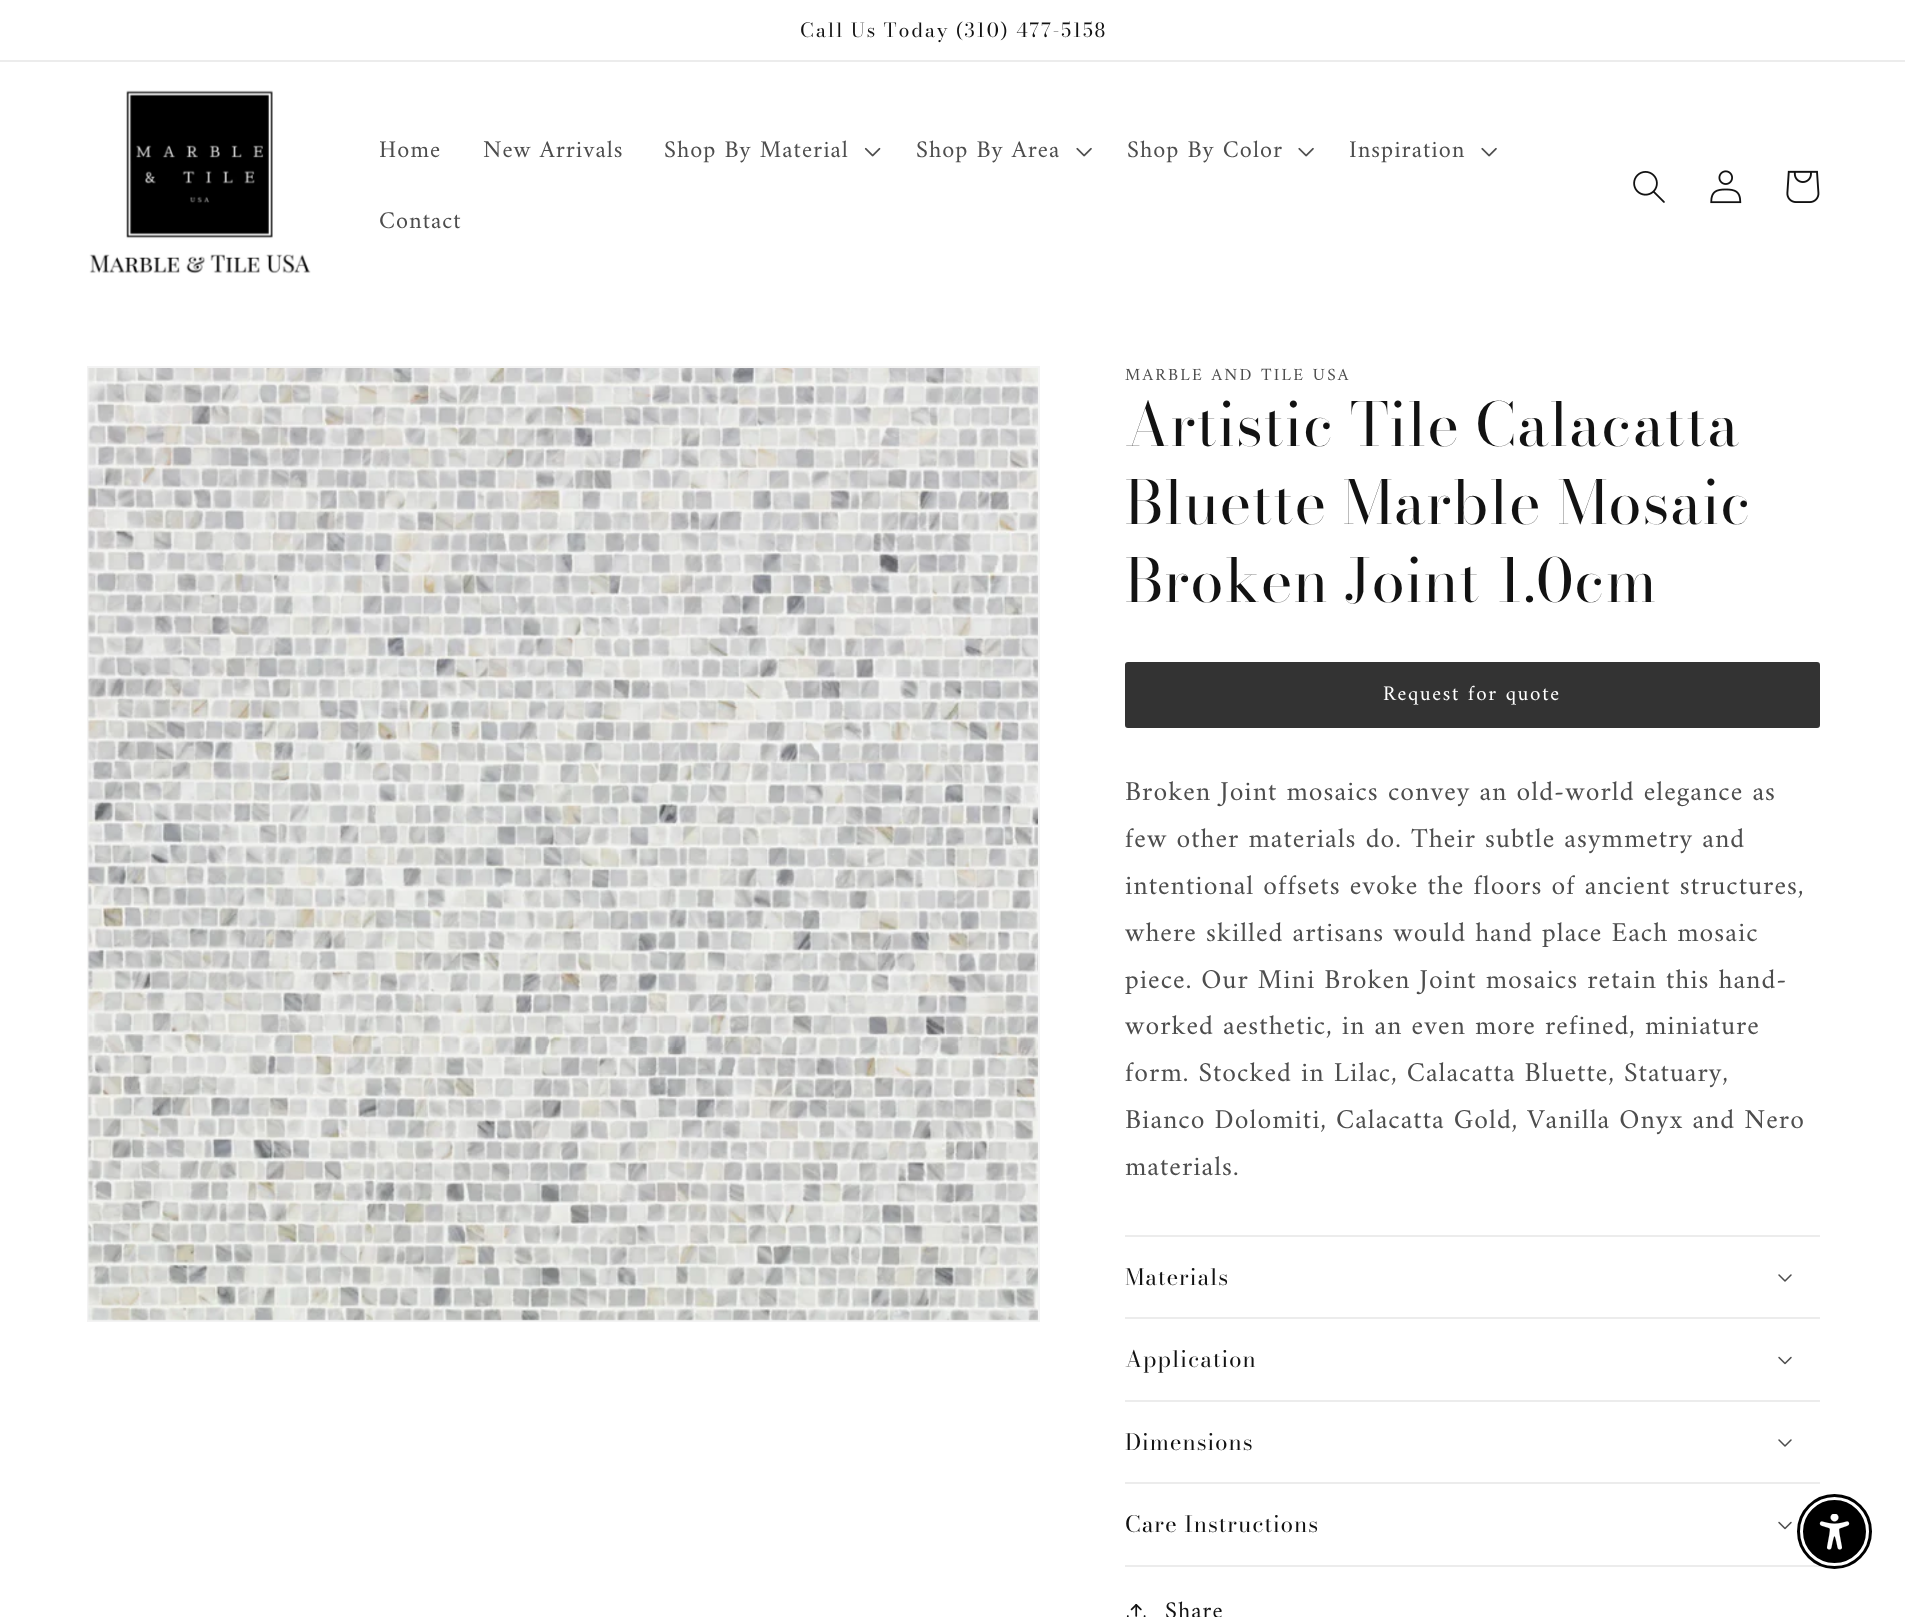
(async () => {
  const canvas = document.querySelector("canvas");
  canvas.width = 1905;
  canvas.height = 1617;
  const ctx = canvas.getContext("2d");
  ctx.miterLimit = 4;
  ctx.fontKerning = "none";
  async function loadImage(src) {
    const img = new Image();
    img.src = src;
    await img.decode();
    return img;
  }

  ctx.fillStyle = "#ffffff";
  ctx.fillRect(0, 0, 1905, 1617);
  ctx.fillStyle = "#ececec";
  ctx.fillRect(0, 60, 1905, 2);
  ctx.drawImage(await loadImage("img/1.png"), 89, 90, 222, 184);
  ctx.drawImage(await loadImage("img/2.png"), 864, 147, 17, 10);
  ctx.drawImage(await loadImage("img/3.png"), 1076, 147, 16, 10);
  ctx.drawImage(await loadImage("img/3.png"), 1298, 147, 16, 10);
  ctx.drawImage(await loadImage("img/3.png"), 1481, 147, 16, 10);
  ctx.drawImage(await loadImage("img/4.png"), 1633, 171, 32, 32);
  ctx.drawImage(await loadImage("img/5.png"), 1710, 170, 32, 34);
  ctx.drawImage(await loadImage("img/6.png"), 1786, 170, 34, 33);
  ctx.strokeStyle = "#f3f3f3";
  ctx.lineWidth = 2;
  ctx.strokeRect(88, 367, 951, 954);
  ctx.drawImage(await loadImage("img/7.png"), 88, 368, 950, 953);
  ctx.fillStyle = "#333333";
  ctx.beginPath();
  ctx.roundRect(1126.5, 663.5, 692, 63, 1.5);
  ctx.fill();
  ctx.strokeStyle = "#333333";
  ctx.lineWidth = 3;
  ctx.stroke();
  ctx.fillStyle = "#ececec";
  ctx.fillRect(1125, 1235, 695, 2);
  ctx.fillRect(1125, 1317, 695, 2);
  ctx.drawImage(await loadImage("img/8.png"), 1778, 1274, 14, 8);
  ctx.fillRect(1125, 1400, 695, 2);
  ctx.drawImage(await loadImage("img/9.png"), 1778, 1356, 14, 9);
  ctx.fillRect(1125, 1482, 695, 2);
  ctx.drawImage(await loadImage("img/8.png"), 1778, 1439, 14, 8);
  ctx.fillRect(1125, 1565, 695, 2);
  ctx.drawImage(await loadImage("img/9.png"), 1778, 1521, 14, 9);
  ctx.drawImage(await loadImage("img/10.png"), 1126, 1604, 20, 13);
  ctx.beginPath();
  ctx.arc(1834.5, 1531.5, 36, 0, Math.PI * 2);
  ctx.strokeStyle = "#000000";
  ctx.stroke();
  ctx.fillStyle = "#000000";
  ctx.beginPath();
  ctx.arc(1834.5, 1531.5, 30.5, 0, Math.PI * 2);
  ctx.fill();
  ctx.lineWidth = 2;
  ctx.stroke();
  ctx.drawImage(await loadImage("img/11.png"), 1819, 1514, 31, 36);
  ctx.letterSpacing = "1.75px";
  ctx.font = "19.5px 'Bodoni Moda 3'";
  ctx.fillStyle = "#121212";
  ctx.fillText("Call Us Today (310) 477-5158", 800, 37);
  ctx.letterSpacing = "1.03px";
  ctx.font = "24.25px Amiri";
  ctx.fillStyle = "#4d4d4d";
  for (const [text, x, y] of [
    ["Home", 379, 157],
    ["New Arrivals", 483, 157],
    ["Shop By Material", 664, 157],
    ["Shop By Area", 916, 157],
    ["Shop By Color", 1127, 157],
    ["Inspiration", 1349, 157],
    ["Contact", 379, 228],
  ]) {
    ctx.fillText(text, x, y);
  }
  ctx.letterSpacing = "2.25px";
  ctx.font = "17.25px Amiri";
  ctx.fillText("MARBLE AND TILE USA", 1125, 380);
  ctx.letterSpacing = "0.9px";
  ctx.font = "60px Bodoni Moda";
  ctx.fillStyle = "#121212";
  for (const [text, x, y] of [
    ["Artistic Tile Calacatta", 1125, 446],
    ["Bluette Marble Mosaic", 1125, 524],
    ["Broken Joint 1.0cm", 1125, 602],
  ]) {
    ctx.fillText(text, x, y);
  }
  ctx.letterSpacing = "1.75px";
  ctx.font = "21px Amiri";
  ctx.fillStyle = "#ffffff";
  ctx.fillText("Request for quote", 1383, 700);
  ctx.letterSpacing = "1.03px";
  ctx.font = "27.6px Amiri";
  ctx.fillStyle = "#4d4d4d";
  for (const [text, x, y] of [
    ["Broken Joint mosaics convey an old-world elegance as", 1125, 800],
    ["few other materials do. Their subtle asymmetry and", 1125, 847],
    ["intentional offsets evoke the floors of ancient structures,", 1125, 894],
    ["where skilled artisans would hand place Each mosaic", 1125, 941],
    ["piece. Our Mini Broken Joint mosaics retain this hand-", 1125, 988],
    ["worked aesthetic, in an even more refined, miniature", 1125, 1034],
    ["form. Stocked in Lilac, Calacatta Bluette, Statuary,", 1125, 1081],
    ["Bianco Dolomiti, Calacatta Gold, Vanilla Onyx and Nero", 1125, 1128],
    ["materials.", 1125, 1175],
  ]) {
    ctx.fillText(text, x, y);
  }
  ctx.letterSpacing = "0.9px";
  ctx.font = "22.5px 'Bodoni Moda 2'";
  ctx.fillStyle = "#121212";
  for (const [text, x, y] of [
    ["Materials", 1125, 1285],
    ["Application", 1125, 1367],
    ["Dimensions", 1125, 1450],
    ["Care Instructions", 1125, 1532],
  ]) {
    ctx.fillText(text, x, y);
  }
  ctx.letterSpacing = "1.03px";
  ctx.font = "24.25px Amiri";
  ctx.fillText("Share", 1165, 1618);
})();
